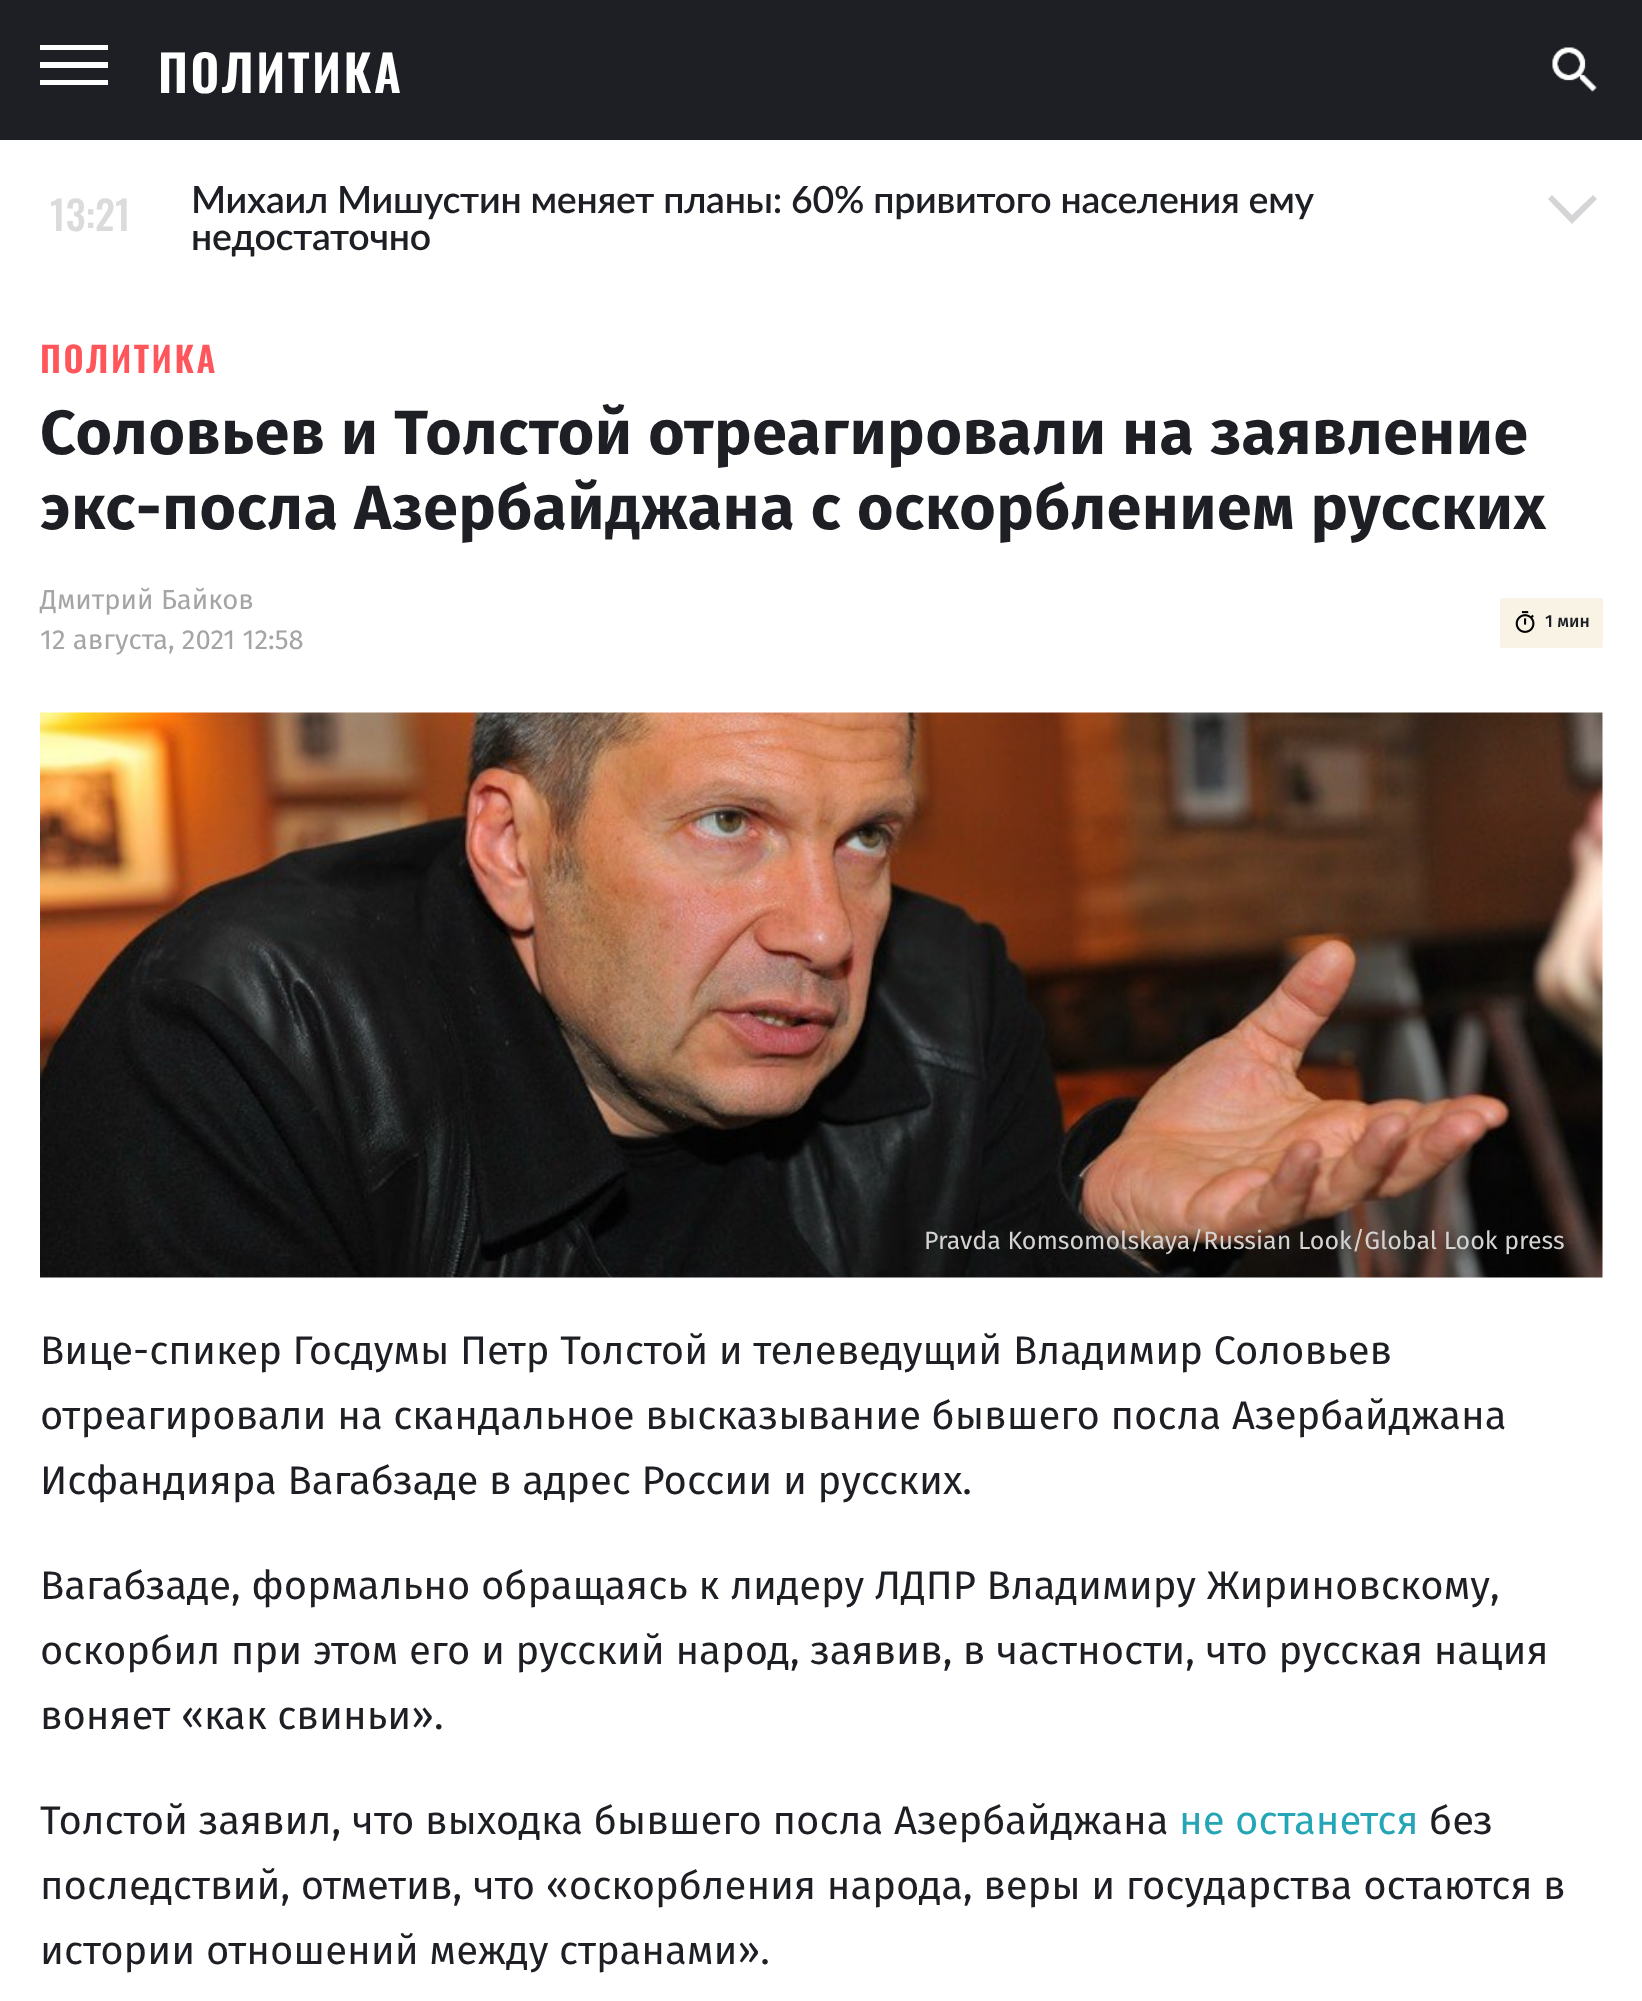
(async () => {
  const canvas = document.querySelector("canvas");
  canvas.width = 1642;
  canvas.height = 2001;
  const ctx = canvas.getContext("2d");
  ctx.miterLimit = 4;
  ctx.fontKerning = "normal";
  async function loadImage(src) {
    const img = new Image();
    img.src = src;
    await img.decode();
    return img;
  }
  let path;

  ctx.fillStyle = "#ffffff";
  ctx.fillRect(0, 0, 1642, 2001);
  ctx.fillStyle = "#1d1f24";
  ctx.fillRect(0, 0, 1642, 140);
  ctx.fillStyle = "#ffffff";
  path = new Path2D("M40 85V80H108V85ZM40 68V62H108V68ZM40 50V45H108V50Z");
  ctx.fill(path);
  ctx.drawImage(await loadImage("img/1.png"), 1552, 47, 45, 45);
  ctx.fillStyle = "#d5d5d8";
  path = new Path2D("M1552 195L1548 199L1572 224L1597 199L1593 195L1572 215Z");
  ctx.fill(path);
  ctx.fillStyle = "#f8f3e5";
  ctx.beginPath();
  ctx.roundRect(1500, 598, 103, 50, 2.5);
  ctx.fill();
  ctx.drawImage(await loadImage("img/2.png"), 1515, 611, 20, 22);
  ctx.drawImage(await loadImage("img/3.png"), 40, 712, 1563, 566);
  ctx.letterSpacing = "2.5px";
  ctx.font = "600 50px Oswald";
  ctx.fillStyle = "#ffffff";
  ctx.fillText("ПОЛИТИКА", 158, 93);
  ctx.letterSpacing = "0px";
  ctx.font = "500 40px Oswald";
  ctx.fillStyle = "#dbdbdc";
  ctx.fillText("13:21", 50, 231);
  ctx.letterSpacing = "-0.28px";
  ctx.font = "600 37.5px Lato";
  ctx.fillStyle = "#1d1f24";
  ctx.fillText("Михаил Мишустин меняет планы: 60% привитого населения ему", 191, 213);
  ctx.fillText("недостаточно", 191, 250);
  ctx.letterSpacing = "2.5px";
  ctx.font = "600 35px Oswald";
  ctx.fillStyle = "#ff565c";
  ctx.fillText("ПОЛИТИКА", 40, 373);
  ctx.letterSpacing = "0.75px";
  ctx.font = "bold 62.5px Fira Sans";
  ctx.fillStyle = "#1d1f24";
  ctx.fillText("Соловьев и Толстой отреагировали на заявление", 40, 454);
  ctx.fillText("экс-посла Азербайджана с оскорблением русских", 40, 529);
  ctx.letterSpacing = "0px";
  ctx.font = "27.5px Fira Sans";
  ctx.fillStyle = "#a5a5a7";
  ctx.fillText("Дмитрий Байков", 40, 609);
  ctx.fillText("12 августа, 2021 12:58", 40, 649);
  ctx.font = "500 17.5px Fira Sans";
  ctx.fillStyle = "#1d1f24";
  ctx.fillText("1 мин", 1545, 627);
  ctx.font = "25px Fira Sans";
  ctx.fillStyle = "#d5d3d2";
  ctx.fillText("Pravda Komsomolskaya/Russian Look/Global Look press", 924, 1249);
  ctx.font = "40px Fira Sans";
  ctx.fillStyle = "#1d1f24";
  for (const [text, x, y] of [
    ["Вице-спикер Госдумы Петр Толстой и телеведущий Владимир Соловьев", 40, 1364],
    ["отреагировали на скандальное высказывание бывшего посла Азербайджана", 40, 1429],
    ["Исфандияра Вагабзаде в адрес России и русских.", 40, 1494],
    ["Вагабзаде, формально обращаясь к лидеру ЛДПР Владимиру Жириновскому,", 40, 1599],
    ["оскорбил при этом его и русский народ, заявив, в частности, что русская нация", 40, 1664],
    ["воняет «как свиньи».", 40, 1729],
    ["Толстой заявил, что выходка бывшего посла Азербайджана", 40, 1834],
  ]) {
    ctx.fillText(text, x, y);
  }
  ctx.fillStyle = "#25a6b6";
  ctx.fillText("не останется", 1179, 1834);
  ctx.fillStyle = "#1d1f24";
  for (const [text, x, y] of [
    ["без", 1429, 1834],
    ["последствий, отметив, что «оскорбления народа, веры и государства остаются в", 40, 1899],
    ["истории отношений между странами».", 40, 1964],
  ]) {
    ctx.fillText(text, x, y);
  }
})();
